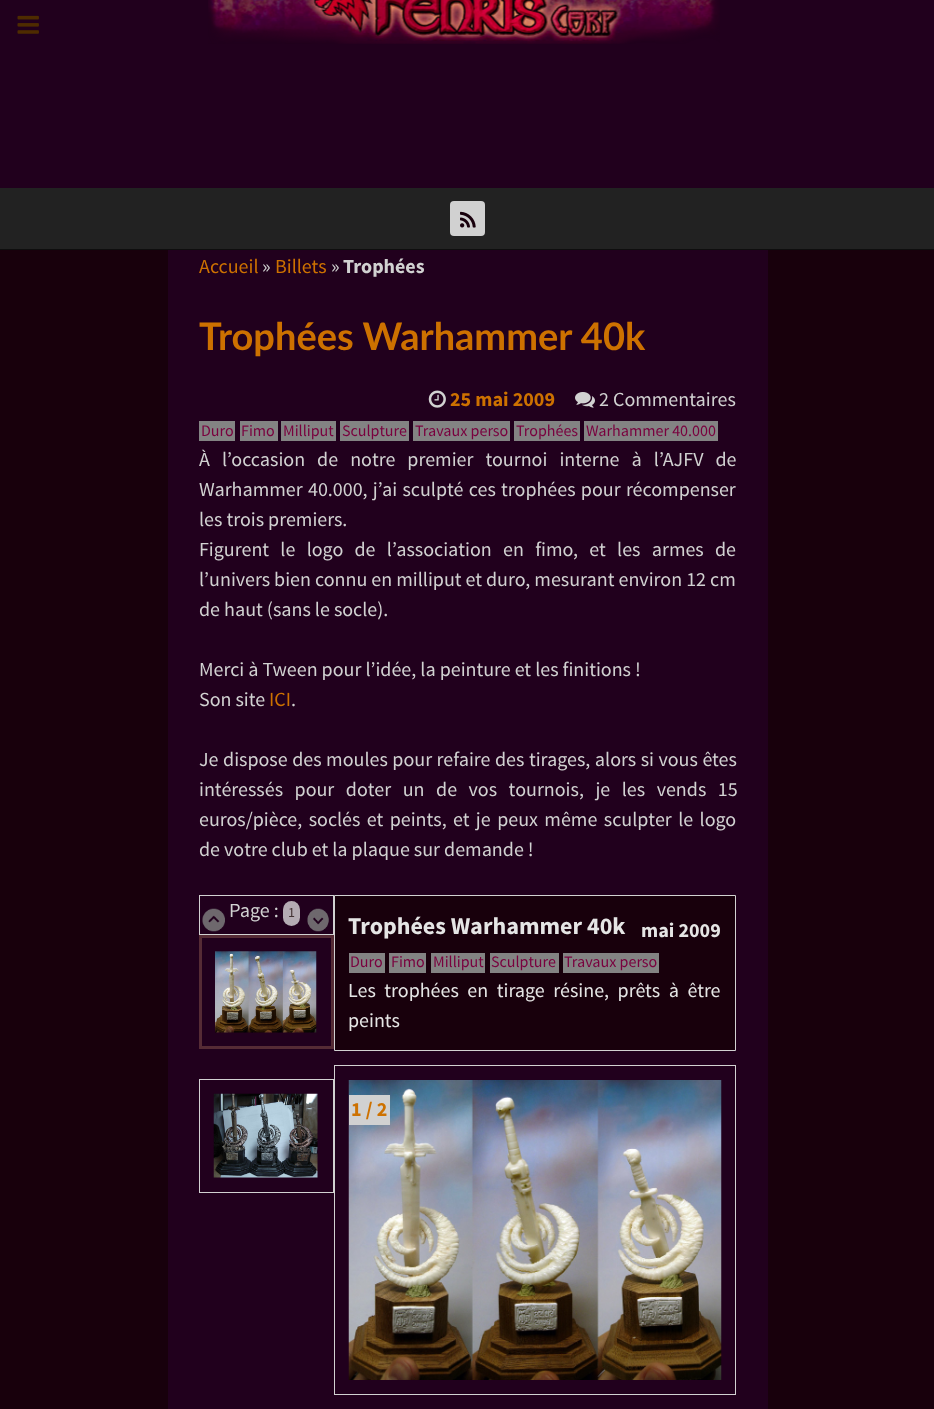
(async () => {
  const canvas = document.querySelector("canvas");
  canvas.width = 934;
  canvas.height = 1409;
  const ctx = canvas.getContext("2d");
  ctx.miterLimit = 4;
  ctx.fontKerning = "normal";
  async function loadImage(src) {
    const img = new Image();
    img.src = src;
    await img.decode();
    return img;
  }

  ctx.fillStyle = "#18000c";
  ctx.fillRect(0, 0, 934, 1409);
  ctx.fillStyle = "#21001d";
  ctx.fillRect(0, 0, 934, 188);
  ctx.drawImage(await loadImage("img/1.png"), 208, 0, 512, 44);
  ctx.drawImage(await loadImage("img/2.png"), 17, 15, 22, 19);
  ctx.fillStyle = "#222222";
  ctx.fillRect(0, 188, 934, 61);
  ctx.fillStyle = "#0e0e0e";
  ctx.fillRect(0, 249, 934, 1);
  ctx.fillStyle = "#d1d1d1";
  ctx.beginPath();
  ctx.roundRect(450, 201, 35, 35, 4);
  ctx.fill();
  ctx.drawImage(await loadImage("img/3.png"), 460, 211, 16, 17);
  ctx.fillStyle = "#21001d";
  ctx.fillRect(168, 250, 600, 1159);
  ctx.drawImage(await loadImage("img/4.png"), 428, 390, 18, 18);
  ctx.drawImage(await loadImage("img/5.png"), 575, 392, 20, 16);
  for (const [x, y, w, h, color] of [
    [199, 421, 36, 20, "#838383"],
    [240, 421, 38, 20, "#838383"],
    [281, 421, 55, 20, "#838383"],
    [340, 421, 69, 20, "#838383"],
    [413, 421, 97, 20, "#838383"],
    [514, 421, 66, 20, "#838383"],
    [584, 421, 134, 20, "#838383"],
  ]) {
    ctx.fillStyle = color;
    ctx.fillRect(x, y, w, h);
  }
  ctx.strokeStyle = "#d1d1d1";
  ctx.strokeRect(199.5, 895.5, 134, 39);
  ctx.drawImage(await loadImage("img/6.png"), 202, 908, 23, 24);
  ctx.fillStyle = "#b4acb3";
  ctx.beginPath();
  ctx.roundRect(283, 901, 17, 25, 8.5);
  ctx.fill();
  ctx.drawImage(await loadImage("img/7.png"), 307, 908, 22, 24);
  ctx.strokeStyle = "#552b35";
  ctx.lineWidth = 3;
  ctx.strokeRect(200.5, 936.5, 132, 111);
  ctx.drawImage(await loadImage("img/8.png"), 215, 951, 102, 82);
  ctx.strokeStyle = "#d1d1d1";
  ctx.lineWidth = 1;
  ctx.strokeRect(199.5, 1079.5, 134, 113);
  ctx.drawImage(await loadImage("img/9.png"), 213, 1093, 105, 85);
  ctx.fillStyle = "#18000c";
  ctx.beginPath();
  ctx.rect(334.5, 895.5, 401, 155);
  ctx.fill();
  ctx.stroke();
  for (const [x, y, w, h, color] of [
    [349, 953, 36, 20, "#838383"],
    [389, 953, 37, 20, "#838383"],
    [431, 953, 54, 20, "#838383"],
    [490, 953, 69, 20, "#838383"],
    [563, 953, 96, 20, "#838383"],
  ]) {
    ctx.fillStyle = color;
    ctx.fillRect(x, y, w, h);
  }
  ctx.strokeRect(334.5, 1065.5, 401, 329);
  ctx.drawImage(await loadImage("img/10.png"), 348, 1080, 374, 300);
  ctx.fillStyle = "#d1d1d1";
  ctx.fillRect(349, 1095, 41, 30);
  ctx.font = "20px Source Sans Pro";
  ctx.fillStyle = "#cd7100";
  ctx.fillText("Accueil", 199, 273);
  ctx.fillStyle = "#d1d1d1";
  ctx.fillText("»", 262, 273);
  ctx.fillStyle = "#cd7100";
  ctx.fillText("Billets", 275, 273);
  ctx.fillStyle = "#d1d1d1";
  ctx.fillText("»", 331, 273);
  ctx.font = "bold 20px Source Sans Pro";
  ctx.fillText("Trophées", 343, 273);
  ctx.font = "bold 38px Lato";
  ctx.fillStyle = "#cd7100";
  ctx.fillText("Trophées Warhammer 40k", 199, 350);
  ctx.font = "bold 20px Source Sans Pro";
  ctx.fillText("25 mai 2009", 450, 406);
  ctx.font = "20px Source Sans Pro";
  ctx.fillStyle = "#d1d1d1";
  ctx.fillText("2 Commentaires", 599, 406);
  ctx.font = "16px Source Sans Pro";
  ctx.fillStyle = "#79003e";
  for (const [text, x, y] of [
    ["Duro", 201, 436],
    ["Fimo", 241, 436],
    ["Milliput", 283, 436],
    ["Sculpture", 342, 436],
    ["Travaux perso", 415, 436],
    ["Trophées", 516, 436],
    ["Warhammer 40.000", 586, 436],
  ]) {
    ctx.fillText(text, x, y);
  }
  ctx.wordSpacing = "8px";
  ctx.font = "20px Source Sans Pro";
  ctx.fillStyle = "#d1d1d1";
  ctx.fillText("À l’occasion de notre premier tournoi interne à l’AJFV de", 199, 466);
  ctx.wordSpacing = "1.25px";
  ctx.fillText("Warhammer 40.000, j’ai sculpté ces trophées pour récompenser", 199, 496);
  ctx.wordSpacing = "0px";
  ctx.fillText("les trois premiers.", 199, 526);
  ctx.wordSpacing = "7.25px";
  ctx.fillText("Figurent le logo de l’association en fimo, et les armes de", 199, 556);
  ctx.wordSpacing = "0px";
  for (const [text, x, y] of [
    ["l’univers bien connu en milliput et duro, mesurant environ 12 cm", 199, 586],
    ["de haut (sans le socle).", 199, 616],
    ["Merci à Tween pour l’idée, la peinture et les finitions !", 199, 676],
    ["Son site", 199, 706],
  ]) {
    ctx.fillText(text, x, y);
  }
  ctx.fillStyle = "#cd7100";
  ctx.fillText("ICI", 269, 706);
  ctx.fillStyle = "#d1d1d1";
  ctx.fillText(".", 291, 706);
  ctx.wordSpacing = "0.5px";
  ctx.fillText("Je dispose des moules pour refaire des tirages, alors si vous êtes", 199, 766);
  ctx.wordSpacing = "7.5px";
  ctx.fillText("intéressés pour doter un de vos tournois, je les vends 15", 199, 796);
  ctx.wordSpacing = "2.4px";
  ctx.fillText("euros/pièce, soclés et peints, et je peux même sculpter le logo", 199, 826);
  ctx.wordSpacing = "0px";
  ctx.fillText("de votre club et la plaque sur demande !", 199, 856);
  ctx.fillText("Page :", 229, 917);
  ctx.font = "14px Source Sans Pro";
  ctx.fillStyle = "#433334";
  ctx.fillText("1", 288, 917);
  ctx.font = "bold 24px Source Sans Pro";
  ctx.fillStyle = "#e5e5e5";
  ctx.fillText("Trophées Warhammer 40k", 348, 934);
  ctx.font = "bold 20px Source Sans Pro";
  ctx.fillText("mai 2009", 641, 937);
  ctx.font = "16px Source Sans Pro";
  ctx.fillStyle = "#79003e";
  for (const [text, x, y] of [
    ["Duro", 350, 967],
    ["Fimo", 391, 967],
    ["Milliput", 433, 967],
    ["Sculpture", 491, 967],
    ["Travaux perso", 564, 967],
  ]) {
    ctx.fillText(text, x, y);
  }
  ctx.wordSpacing = "4.5px";
  ctx.font = "20px Source Sans Pro";
  ctx.fillStyle = "#e5e5e5";
  ctx.fillText("Les trophées en tirage résine, prêts à être", 348, 997);
  ctx.wordSpacing = "0px";
  ctx.fillText("peints", 348, 1027);
  ctx.font = "bold 20px Source Sans Pro";
  ctx.fillStyle = "#cd7100";
  ctx.fillText("1 / 2", 351, 1116);
})();
